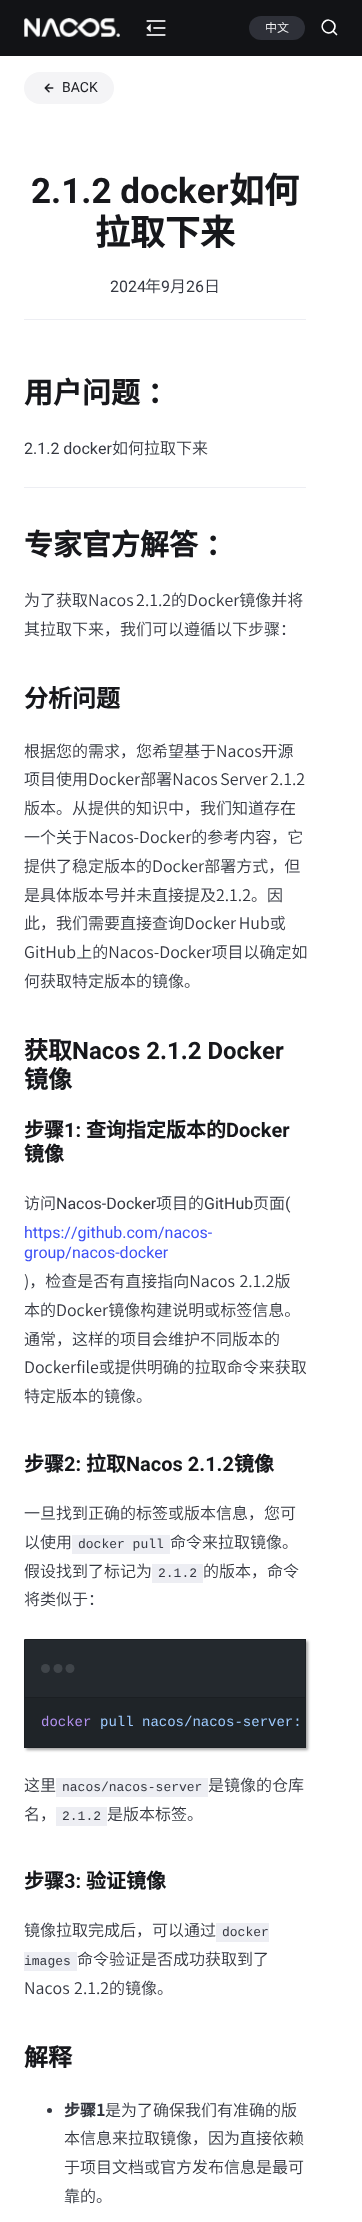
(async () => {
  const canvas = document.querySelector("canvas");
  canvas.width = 362;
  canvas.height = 2222;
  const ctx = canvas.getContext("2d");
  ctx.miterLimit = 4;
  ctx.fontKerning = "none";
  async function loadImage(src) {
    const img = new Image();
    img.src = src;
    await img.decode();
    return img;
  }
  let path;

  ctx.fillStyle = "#ffffff";
  ctx.fillRect(0, 0, 362, 2222);
  ctx.fillStyle = "#121316";
  ctx.fillRect(0, 0, 362, 56);
  ctx.drawImage(await loadImage("img/1.png"), 24, 18, 96, 19);
  ctx.drawImage(await loadImage("img/2.png"), 146, 20, 20, 16);
  ctx.fillStyle = "#2e3038";
  ctx.beginPath();
  ctx.roundRect(249, 16, 56, 24, 12);
  ctx.fill();
  path = new Path2D("M333 31L336.5 34.5L333 31C327 37 318.5 28 324 22C330 16.5 339 25 333 31Z");
  ctx.strokeStyle = "#ffffff";
  ctx.lineWidth = 1.7;
  ctx.lineCap = "round";
  ctx.lineJoin = "round";
  ctx.stroke(path);
  ctx.fillStyle = "#f4f4f6";
  ctx.beginPath();
  ctx.roundRect(24, 72, 90, 32, 16);
  ctx.fill();
  ctx.drawImage(await loadImage("img/3.png"), 44, 83, 10, 10);
  for (const [x, y, w, h, color] of [
    [24, 319, 282, 1, "#edeef3"],
    [24, 487, 282, 1, "#edeef3"],
    [72, 1535, 98, 19, "#edeef3"],
    [152, 1564, 51, 19, "#edeef3"],
  ]) {
    ctx.fillStyle = color;
    ctx.fillRect(x, y, w, h);
  }
  ctx.fillStyle = "rgba(0, 0, 0, 0.36)";
  ctx.filter = "blur(1.5px)";
  ctx.beginPath();
  ctx.roundRect(26, 1641, 282, 109, 1);
  ctx.fill();
  ctx.filter = "none";
  ctx.fillStyle = "#24292e";
  ctx.beginPath();
  ctx.roundRect(24, 1639, 282, 59, [1, 1, 0, 0]);
  ctx.fill();
  for (const [x, y, w, h, color] of [
    [25, 1639, 281, 1, "#1b1f23"],
    [305, 1640, 1, 58, "#1b1f23"],
    [24, 1640, 1, 58, "#1b1f23"],
  ]) {
    ctx.fillStyle = color;
    ctx.fillRect(x, y, w, h);
  }
  ctx.fillStyle = "#40454a";
  ctx.beginPath();
  ctx.arc(45.5, 1668.5, 4.5, 0, Math.PI * 2);
  ctx.fill();
  ctx.beginPath();
  ctx.arc(58, 1668.5, 4.5, 0, Math.PI * 2);
  ctx.fill();
  ctx.beginPath();
  ctx.arc(70, 1668.5, 4.5, 0, Math.PI * 2);
  ctx.fill();
  for (const [x, y, w, h, color] of [
    [25, 1697, 280, 1, "#1b1f23"],
    [25, 1698, 280, 49, "#1f2428"],
    [305, 1698, 1, 50, "#1b1f23"],
    [25, 1747, 281, 1, "#1b1f23"],
    [24, 1698, 1, 50, "#1b1f23"],
    [56, 1778, 152, 19, "#edeef3"],
    [56, 1807, 51, 19, "#edeef3"],
    [216, 1923, 53, 19, "#edeef3"],
    [24, 1952, 53, 19, "#edeef3"],
  ]) {
    ctx.fillStyle = color;
    ctx.fillRect(x, y, w, h);
  }
  ctx.fillStyle = "#353841";
  ctx.beginPath();
  ctx.arc(49.5, 2110.5, 2.5, 0, Math.PI * 2);
  ctx.fill();
  ctx.font = "300 12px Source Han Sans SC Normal";
  ctx.fillStyle = "#f4f4f6";
  ctx.fillText("中文", 265, 32);
  ctx.font = "14px Roboto";
  ctx.fillStyle = "#1e1f24";
  ctx.fillText("BACK", 62, 92);
  ctx.font = "bold 35px Roboto";
  ctx.fillStyle = "#17181c";
  ctx.fillText("2.1.2 docker", 31, 203);
  ctx.font = "bold 35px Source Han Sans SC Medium";
  ctx.fillText("如何", 229, 203);
  ctx.fillText("拉取下来", 95, 245);
  ctx.font = "16px Roboto";
  ctx.fillStyle = "#353841";
  ctx.fillText("2024", 110, 292);
  ctx.font = "300 16px Source Han Sans SC Normal";
  ctx.fillText("年", 145, 292);
  ctx.font = "16px Roboto";
  ctx.fillText("9", 161, 292);
  ctx.font = "300 16px Source Han Sans SC Normal";
  ctx.fillText("月", 170, 292);
  ctx.font = "16px Roboto";
  ctx.fillText("26", 186, 292);
  ctx.font = "300 16px Source Han Sans SC Normal";
  ctx.fillText("日", 204, 292);
  ctx.wordSpacing = "1px";
  ctx.font = "bold 29px Source Han Sans SC Medium";
  ctx.fillStyle = "#17181c";
  ctx.fillText("用户问题 ：", 24, 403);
  ctx.wordSpacing = "0px";
  ctx.font = "16px Roboto";
  ctx.fillStyle = "#353841";
  ctx.fillText("2.1.2 docker", 24, 454);
  ctx.font = "300 16px Source Han Sans SC Normal";
  ctx.fillText("如何拉取下来", 112, 454);
  ctx.wordSpacing = "1px";
  ctx.font = "bold 29px Source Han Sans SC Medium";
  ctx.fillStyle = "#17181c";
  ctx.fillText("专家官方解答 ：", 24, 555);
  ctx.wordSpacing = "-1px";
  ctx.font = "300 16px Source Han Sans SC Normal";
  ctx.fillStyle = "#353841";
  ctx.fillText("为了获取Nacos 2.1.2的Docker镜像并将", 24, 606);
  ctx.wordSpacing = "0px";
  ctx.fillText("其拉取下来，我们可以遵循以下步骤：", 24, 635);
  ctx.font = "bold 24px Source Han Sans SC Medium";
  ctx.fillStyle = "#17181c";
  ctx.fillText("分析问题", 24, 707);
  ctx.font = "300 16px Source Han Sans SC Normal";
  ctx.fillStyle = "#353841";
  ctx.fillText("根据您的需求，您希望基于Nacos开源", 24, 757);
  ctx.wordSpacing = "-1px";
  ctx.fillText("项目使用Docker部署Nacos Server 2.1.2", 24, 785);
  ctx.wordSpacing = "0px";
  for (const [text, x, y] of [
    ["版本。从提供的知识中，我们知道存在", 24, 814],
    ["一个关于Nacos-Docker的参考内容，它", 24, 843],
    ["提供了稳定版本的Docker部署方式，但", 24, 872],
    ["是具体版本号并未直接提及2.1.2。因", 24, 901],
  ]) {
    ctx.fillText(text, x, y);
  }
  ctx.wordSpacing = "-1px";
  ctx.fillText("此，我们需要直接查询Docker Hub或", 24, 929);
  ctx.wordSpacing = "0px";
  ctx.fillText("GitHub上的Nacos-Docker项目以确定如", 24, 958);
  ctx.fillText("何获取特定版本的镜像。", 24, 987);
  ctx.font = "bold 24px Source Han Sans SC Medium";
  ctx.fillStyle = "#17181c";
  ctx.fillText("获取", 24, 1059);
  ctx.font = "bold 24px Roboto";
  ctx.fillText("Nacos 2.1.2 Docker", 72, 1059);
  ctx.font = "bold 24px Source Han Sans SC Medium";
  ctx.fillText("镜像", 24, 1088);
  ctx.font = "bold 20px Source Han Sans SC Medium";
  ctx.fillText("步骤", 24, 1137);
  ctx.font = "bold 20px Roboto";
  ctx.fillText("1:", 64, 1137);
  ctx.font = "bold 20px Source Han Sans SC Medium";
  ctx.fillText("查询指定版本的", 86, 1137);
  ctx.font = "bold 20px Roboto";
  ctx.fillText("Docker", 226, 1137);
  ctx.font = "bold 20px Source Han Sans SC Medium";
  ctx.fillText("镜像", 24, 1161);
  ctx.font = "300 16px Source Han Sans SC Normal";
  ctx.fillStyle = "#353841";
  ctx.fillText("访问", 24, 1209);
  ctx.font = "16px Roboto";
  ctx.fillText("Nacos-Docker", 56, 1209);
  ctx.font = "300 16px Source Han Sans SC Normal";
  ctx.fillText("项目的", 156, 1209);
  ctx.font = "16px Roboto";
  ctx.fillText("GitHub", 204, 1209);
  ctx.font = "300 16px Source Han Sans SC Normal";
  ctx.fillText("页面", 253, 1209);
  ctx.font = "16px Roboto";
  ctx.fillText("(", 285, 1209);
  ctx.fillStyle = "#3d50f5";
  ctx.fillText("https://github.com/nacos-", 24, 1238);
  ctx.fillText("group/nacos-docker", 24, 1258);
  ctx.wordSpacing = "1px";
  ctx.font = "300 16px Source Han Sans SC Normal";
  ctx.fillStyle = "#353841";
  ctx.fillText(")，检查是否有直接指向Nacos 2.1.2版", 24, 1287);
  ctx.wordSpacing = "0px";
  for (const [text, x, y] of [
    ["本的Docker镜像构建说明或标签信息。", 24, 1316],
    ["通常，这样的项目会维护不同版本的", 24, 1345],
    ["Dockerfile或提供明确的拉取命令来获取", 24, 1373],
    ["特定版本的镜像。", 24, 1402],
  ]) {
    ctx.fillText(text, x, y);
  }
  ctx.font = "bold 20px Source Han Sans SC Medium";
  ctx.fillStyle = "#17181c";
  ctx.fillText("步骤", 24, 1471);
  ctx.font = "bold 20px Roboto";
  ctx.fillText("2:", 64, 1471);
  ctx.font = "bold 20px Source Han Sans SC Medium";
  ctx.fillText("拉取", 86, 1471);
  ctx.font = "bold 20px Roboto";
  ctx.fillText("Nacos 2.1.2", 126, 1471);
  ctx.font = "bold 20px Source Han Sans SC Medium";
  ctx.fillText("镜像", 234, 1471);
  ctx.font = "300 16px Source Han Sans SC Normal";
  ctx.fillStyle = "#353841";
  ctx.fillText("一旦找到正确的标签或版本信息，您可", 24, 1519);
  ctx.fillText("以使用", 24, 1548);
  ctx.font = "13px Liberation Mono";
  ctx.fillText("docker pull", 78, 1548);
  ctx.font = "300 16px Source Han Sans SC Normal";
  ctx.fillText("命令来拉取镜像。", 170, 1548);
  ctx.fillText("假设找到了标记为", 24, 1577);
  ctx.font = "13px Liberation Mono";
  ctx.fillText("2.1.2", 158, 1577);
  ctx.font = "300 16px Source Han Sans SC Normal";
  ctx.fillText("的版本，命令", 203, 1577);
  ctx.fillText("将类似于：", 24, 1605);
  ctx.font = "14px Liberation Mono";
  ctx.fillStyle = "#b392f0";
  ctx.fillText("docker", 41, 1726);
  ctx.fillStyle = "#9ecbff";
  ctx.fillText("pull nacos/nacos-server:", 100, 1726);
  ctx.font = "300 16px Source Han Sans SC Normal";
  ctx.fillStyle = "#353841";
  ctx.fillText("这里", 24, 1791);
  ctx.font = "13px Liberation Mono";
  ctx.fillText("nacos/nacos-server", 62, 1791);
  ctx.font = "300 16px Source Han Sans SC Normal";
  ctx.fillText("是镜像的仓库", 208, 1791);
  ctx.fillText("名，", 24, 1820);
  ctx.font = "13px Liberation Mono";
  ctx.fillText("2.1.2", 62, 1820);
  ctx.font = "300 16px Source Han Sans SC Normal";
  ctx.fillText("是版本标签。", 107, 1820);
  ctx.font = "bold 20px Source Han Sans SC Medium";
  ctx.fillStyle = "#17181c";
  ctx.fillText("步骤", 24, 1888);
  ctx.font = "bold 20px Roboto";
  ctx.fillText("3:", 64, 1888);
  ctx.font = "bold 20px Source Han Sans SC Medium";
  ctx.fillText("验证镜像", 86, 1888);
  ctx.font = "300 16px Source Han Sans SC Normal";
  ctx.fillStyle = "#353841";
  ctx.fillText("镜像拉取完成后，可以通过", 24, 1936);
  ctx.font = "13px Liberation Mono";
  ctx.fillText("docker", 222, 1936);
  ctx.fillText("images", 24, 1965);
  ctx.font = "300 16px Source Han Sans SC Normal";
  ctx.fillText("命令验证是否成功获取到了", 77, 1965);
  ctx.wordSpacing = "1px";
  ctx.fillText("Nacos 2.1.2的镜像。", 24, 1994);
  ctx.wordSpacing = "0px";
  ctx.font = "bold 24px Source Han Sans SC Medium";
  ctx.fillStyle = "#17181c";
  ctx.fillText("解释", 24, 2066);
  ctx.font = "bold 16px Source Han Sans SC Medium";
  ctx.fillStyle = "#353841";
  ctx.fillText("步骤1", 64, 2116);
  ctx.font = "300 16px Source Han Sans SC Normal";
  for (const [text, x, y] of [
    ["是为了确保我们有准确的版", 105, 2116],
    ["本信息来拉取镜像，因为直接依赖", 64, 2144],
    ["于项目文档或官方发布信息是最可", 64, 2173],
    ["靠的。", 64, 2202],
  ]) {
    ctx.fillText(text, x, y);
  }
})();
